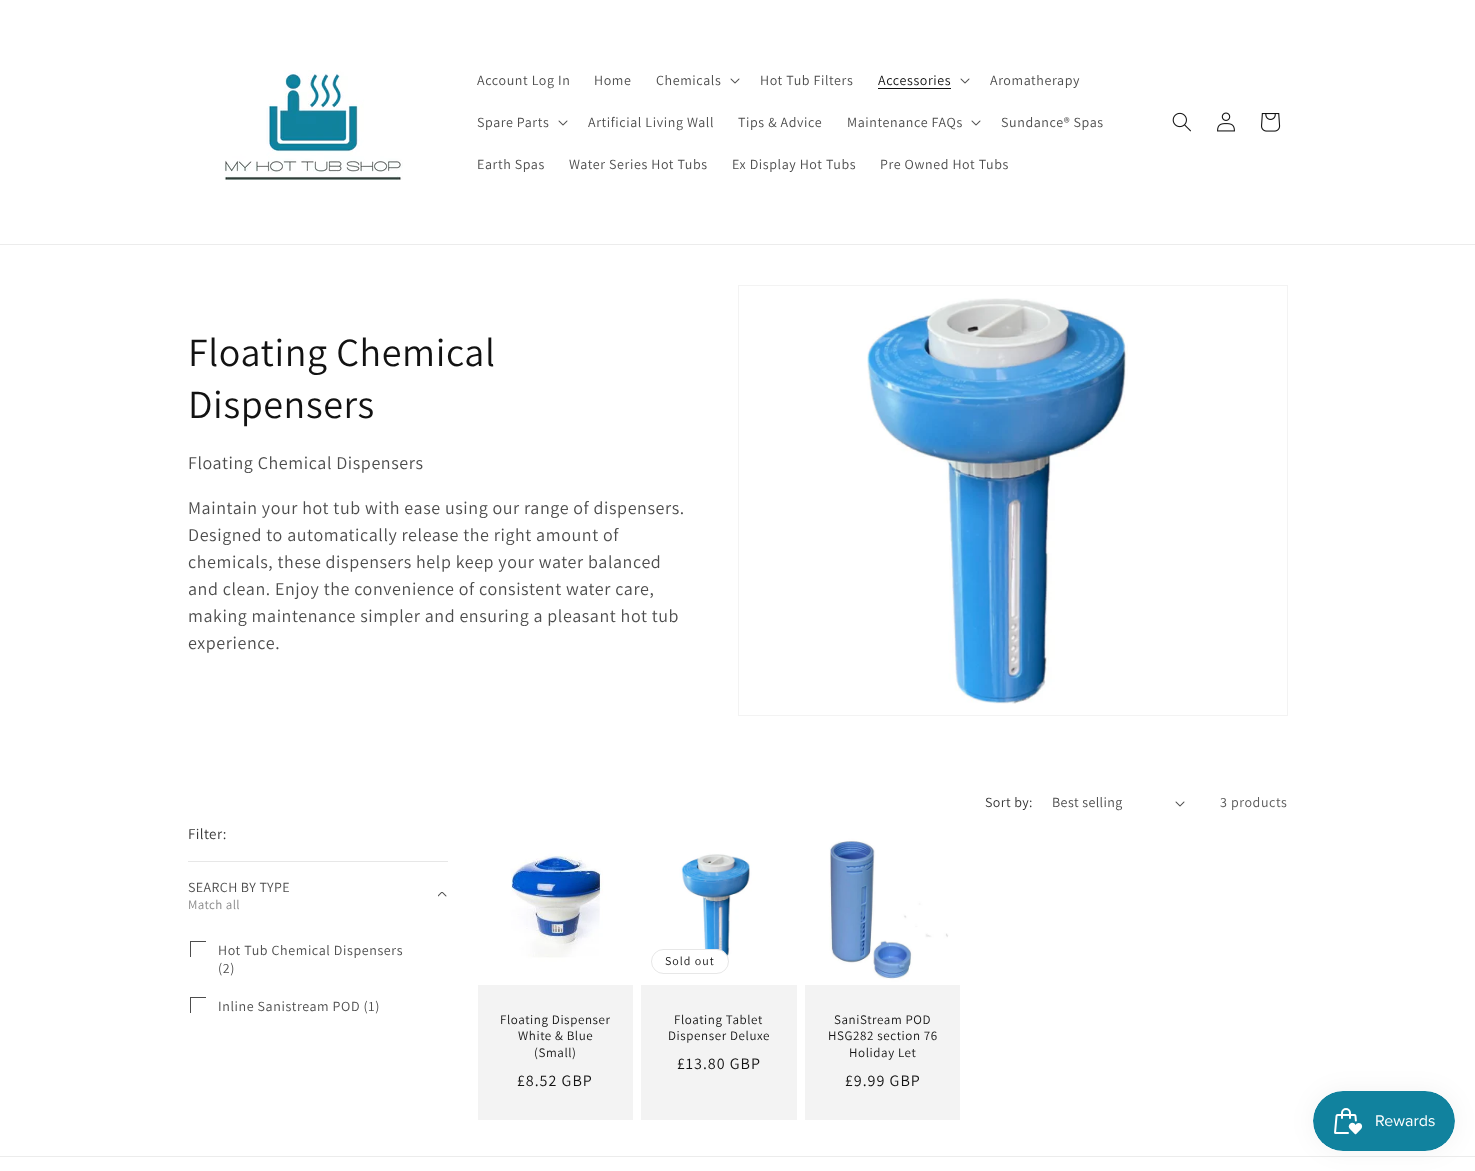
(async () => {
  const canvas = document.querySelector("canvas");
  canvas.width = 1475;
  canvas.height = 1171;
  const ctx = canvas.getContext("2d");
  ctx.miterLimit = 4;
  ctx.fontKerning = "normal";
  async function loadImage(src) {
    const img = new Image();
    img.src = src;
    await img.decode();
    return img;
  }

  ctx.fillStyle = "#ffffff";
  ctx.fillRect(0, 0, 1475, 1171);
  ctx.fillStyle = "#ececec";
  ctx.fillRect(0, 244, 1475, 1);
  ctx.drawImage(await loadImage("img/1.png"), 224, 70, 179, 110);
  ctx.drawImage(await loadImage("img/2.png"), 730, 78, 10, 6);
  ctx.fillStyle = "#121212";
  ctx.fillRect(878, 88, 73, 1);
  ctx.drawImage(await loadImage("img/2.png"), 960, 78, 10, 6);
  ctx.drawImage(await loadImage("img/2.png"), 558, 120, 10, 6);
  ctx.drawImage(await loadImage("img/2.png"), 971, 120, 10, 6);
  ctx.drawImage(await loadImage("img/3.png"), 1172, 112, 19, 20);
  ctx.drawImage(await loadImage("img/4.png"), 1217, 112, 18, 20);
  ctx.drawImage(await loadImage("img/5.png"), 1261, 113, 20, 19);
  ctx.strokeStyle = "#f3f3f3";
  ctx.strokeRect(738.5, 285.5, 549, 430);
  ctx.drawImage(await loadImage("img/6.png"), 867, 298, 261, 406);
  ctx.drawImage(await loadImage("img/2.png"), 1175, 801, 10, 6);
  ctx.fillStyle = "#e7e7e7";
  ctx.fillRect(188, 861, 260, 1);
  ctx.drawImage(await loadImage("img/7.png"), 438, 892, 9, 5);
  ctx.save();
  ctx.beginPath();
  ctx.rect(190, 941, 16, 16);
  ctx.clip();
  ctx.strokeStyle = "#4d4d4d";
  ctx.strokeRect(190.5, 941.5, 16, 16);
  ctx.restore();
  ctx.save();
  ctx.beginPath();
  ctx.rect(190, 997, 16, 16);
  ctx.clip();
  ctx.strokeStyle = "#4d4d4d";
  ctx.strokeRect(190.5, 997.5, 16, 16);
  ctx.restore();
  ctx.fillStyle = "#f3f3f3";
  ctx.fillRect(478, 985, 155, 135);
  ctx.drawImage(await loadImage("img/8.png"), 478, 829, 155, 156);
  ctx.fillRect(641, 985, 156, 135);
  ctx.drawImage(await loadImage("img/9.png"), 641, 829, 156, 156);
  ctx.fillStyle = "#ffffff";
  ctx.beginPath();
  ctx.roundRect(651, 949, 78, 25, 12.5);
  ctx.fill();
  ctx.beginPath();
  ctx.roundRect(651.5, 949.5, 77, 24, 12);
  ctx.strokeStyle = "rgba(18, 18, 18, 0.1)";
  ctx.stroke();
  ctx.fillStyle = "#f3f3f3";
  ctx.fillRect(805, 985, 155, 135);
  ctx.drawImage(await loadImage("img/10.png"), 805, 829, 155, 156);
  ctx.fillStyle = "#ececec";
  ctx.fillRect(0, 1156, 1475, 1);
  ctx.fillStyle = "rgba(0, 0, 0, 0.05)";
  ctx.filter = "blur(12.5px)";
  ctx.beginPath();
  ctx.roundRect(1313, 1091, 142, 60, 30);
  ctx.fill();
  ctx.filter = "none";
  ctx.drawImage(await loadImage("img/11.png"), 1313, 1091, 142, 60);
  ctx.letterSpacing = "0.6px";
  ctx.font = "14px Assistant";
  ctx.fillStyle = "#4d4d4d";
  for (const [text, x, y] of [
    ["Account Log In", 477, 85],
    ["Home", 594, 85],
    ["Chemicals", 656, 85],
    ["Hot Tub Filters", 760, 85],
  ]) {
    ctx.fillText(text, x, y);
  }
  ctx.fillStyle = "#121212";
  ctx.fillText("Accessories", 878, 85);
  ctx.fillStyle = "#4d4d4d";
  for (const [text, x, y] of [
    ["Aromatherapy", 990, 85],
    ["Spare Parts", 477, 127],
    ["Artificial Living Wall", 588, 127],
    ["Tips & Advice", 738, 127],
    ["Maintenance FAQs", 847, 127],
    ["Sundance® Spas", 1001, 127],
    ["Earth Spas", 477, 169],
    ["Water Series Hot Tubs", 569, 169],
    ["Ex Display Hot Tubs", 732, 169],
    ["Pre Owned Hot Tubs", 880, 169],
  ]) {
    ctx.fillText(text, x, y);
  }
  ctx.font = "40px Assistant";
  ctx.fillStyle = "#121212";
  ctx.fillText("Floating Chemical", 188, 366);
  ctx.fillText("Dispensers", 188, 418);
  ctx.font = "18px Assistant";
  ctx.fillStyle = "#4d4d4d";
  for (const [text, x, y] of [
    ["Floating Chemical Dispensers", 188, 469],
    ["Maintain your hot tub with ease using our range of dispensers.", 188, 514],
    ["Designed to automatically release the right amount of", 188, 541],
    ["chemicals, these dispensers help keep your water balanced", 188, 568],
    ["and clean. Enjoy the convenience of consistent water care,", 188, 595],
    ["making maintenance simpler and ensuring a pleasant hot tub", 188, 622],
    ["experience.", 188, 649],
  ]) {
    ctx.fillText(text, x, y);
  }
  ctx.letterSpacing = "0.4px";
  ctx.font = "14px Assistant";
  ctx.fillStyle = "#363636";
  ctx.fillText("Sort by:", 985, 807);
  ctx.fillStyle = "#4d4d4d";
  ctx.fillText("Best selling", 1052, 807);
  ctx.letterSpacing = "0.6px";
  ctx.fillStyle = "#595959";
  ctx.fillText("3 products", 1220, 807);
  ctx.letterSpacing = "0.4px";
  ctx.font = "15px Assistant";
  ctx.fillStyle = "#363636";
  ctx.fillText("Filter:", 188, 839);
  ctx.font = "14px Assistant";
  ctx.fillStyle = "#4d4d4d";
  ctx.fillText("SEARCH BY TYPE", 188, 892);
  ctx.font = "13px Assistant";
  ctx.fillStyle = "#898989";
  ctx.fillText("Match all", 188, 909);
  ctx.letterSpacing = "0.6px";
  ctx.font = "14px Assistant";
  ctx.fillStyle = "#4d4d4d";
  for (const [text, x, y] of [
    ["Hot Tub Chemical Dispensers", 218, 955],
    ["(2)", 218, 973],
    ["Inline Sanistream POD (1)", 218, 1011],
  ]) {
    ctx.fillText(text, x, y);
  }
  ctx.font = "13px Assistant";
  ctx.fillStyle = "#121212";
  for (const [text, x, y] of [
    ["Floating Dispenser", 500, 1024],
    ["White & Blue", 518, 1040],
    ["(Small)", 534, 1057],
  ]) {
    ctx.fillText(text, x, y);
  }
  ctx.letterSpacing = "1px";
  ctx.font = "16px Assistant";
  ctx.fillText("£8.52 GBP", 517, 1086);
  ctx.font = "12px Assistant";
  ctx.fillText("Sold out", 665, 965);
  ctx.letterSpacing = "0.6px";
  ctx.font = "13px Assistant";
  ctx.fillText("Floating Tablet", 674, 1024);
  ctx.fillText("Dispenser Deluxe", 668, 1040);
  ctx.letterSpacing = "1px";
  ctx.font = "16px Assistant";
  ctx.fillText("£13.80 GBP", 677, 1069);
  ctx.letterSpacing = "0.6px";
  ctx.font = "13px Assistant";
  for (const [text, x, y] of [
    ["SaniStream POD", 834, 1024],
    ["HSG282 section 76", 828, 1040],
    ["Holiday Let", 849, 1057],
  ]) {
    ctx.fillText(text, x, y);
  }
  ctx.letterSpacing = "1px";
  ctx.font = "16px Assistant";
  ctx.fillText("£9.99 GBP", 845, 1086);
})();
